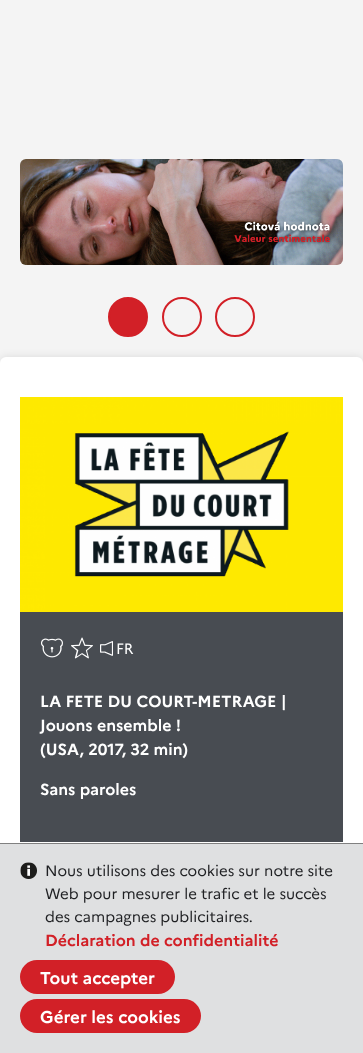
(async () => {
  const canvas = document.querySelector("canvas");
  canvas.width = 363;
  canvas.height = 1053;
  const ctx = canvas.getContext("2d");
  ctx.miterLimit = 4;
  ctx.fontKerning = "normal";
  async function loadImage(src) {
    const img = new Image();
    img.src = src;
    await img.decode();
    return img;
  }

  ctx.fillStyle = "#f4f4f4";
  ctx.fillRect(0, 0, 363, 1053);
  ctx.drawImage(await loadImage("img/1.png"), 20, 159, 323, 106);
  ctx.fillStyle = "#d22027";
  ctx.beginPath();
  ctx.arc(128, 317, 19, 0, Math.PI * 2);
  ctx.fill();
  ctx.strokeStyle = "#d22027";
  ctx.lineWidth = 2;
  ctx.stroke();
  ctx.beginPath();
  ctx.arc(182, 317, 19, 0, Math.PI * 2);
  ctx.stroke();
  ctx.beginPath();
  ctx.arc(235, 317, 19, 0, Math.PI * 2);
  ctx.stroke();
  ctx.fillStyle = "rgba(0, 0, 0, 0.1)";
  ctx.filter = "blur(4px)";
  ctx.beginPath();
  ctx.roundRect(0, 357, 363, 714, 6);
  ctx.fill();
  ctx.filter = "none";
  ctx.fillStyle = "#ffffff";
  ctx.beginPath();
  ctx.roundRect(0, 357, 363, 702, 6);
  ctx.fill();
  ctx.drawImage(await loadImage("img/2.png"), 20, 397, 323, 215);
  ctx.fillStyle = "#484c52";
  ctx.fillRect(20, 612, 323, 230);
  ctx.drawImage(await loadImage("img/3.png"), 41, 638, 22, 20);
  ctx.drawImage(await loadImage("img/4.png"), 71, 637, 22, 22);
  ctx.drawImage(await loadImage("img/5.png"), 100, 641, 13, 15);
  ctx.fillStyle = "#808080";
  ctx.fillRect(0, 843, 363, 1);
  ctx.fillStyle = "#dfe0e1";
  ctx.fillRect(0, 844, 363, 209);
  ctx.drawImage(await loadImage("img/6.png"), 20, 862, 17, 17);
  ctx.fillStyle = "#d22027";
  ctx.beginPath();
  ctx.roundRect(20, 960, 155, 34, 17);
  ctx.fill();
  ctx.beginPath();
  ctx.roundRect(20, 999, 181, 34, 17);
  ctx.fill();
  ctx.font = "15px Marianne";
  ctx.fillStyle = "#ffffff";
  ctx.fillText("FR", 116, 654);
  ctx.font = "bold 16px Marianne";
  for (const [text, x, y] of [
    ["LA FETE DU COURT-METRAGE |", 40, 707],
    ["Jouons ensemble !", 40, 731],
    ["(USA, 2017, 32 min)", 40, 755],
    ["Sans paroles", 40, 795],
  ]) {
    ctx.fillText(text, x, y);
  }
  ctx.font = "15px Marianne";
  ctx.fillStyle = "#1f2023";
  for (const [text, x, y] of [
    ["Nous utilisons des cookies sur notre site", 45, 876],
    ["Web pour mesurer le trafic et le succès", 45, 899],
    ["des campagnes publicitaires.", 45, 922],
  ]) {
    ctx.fillText(text, x, y);
  }
  ctx.font = "bold 16px Marianne";
  ctx.fillStyle = "#d22027";
  ctx.fillText("Déclaration de confidentialité", 45, 946);
  ctx.font = "bold 17px Marianne";
  ctx.fillStyle = "#ffffff";
  ctx.fillText("Tout accepter", 40, 984);
  ctx.fillText("Gérer les cookies", 40, 1023);
})();
